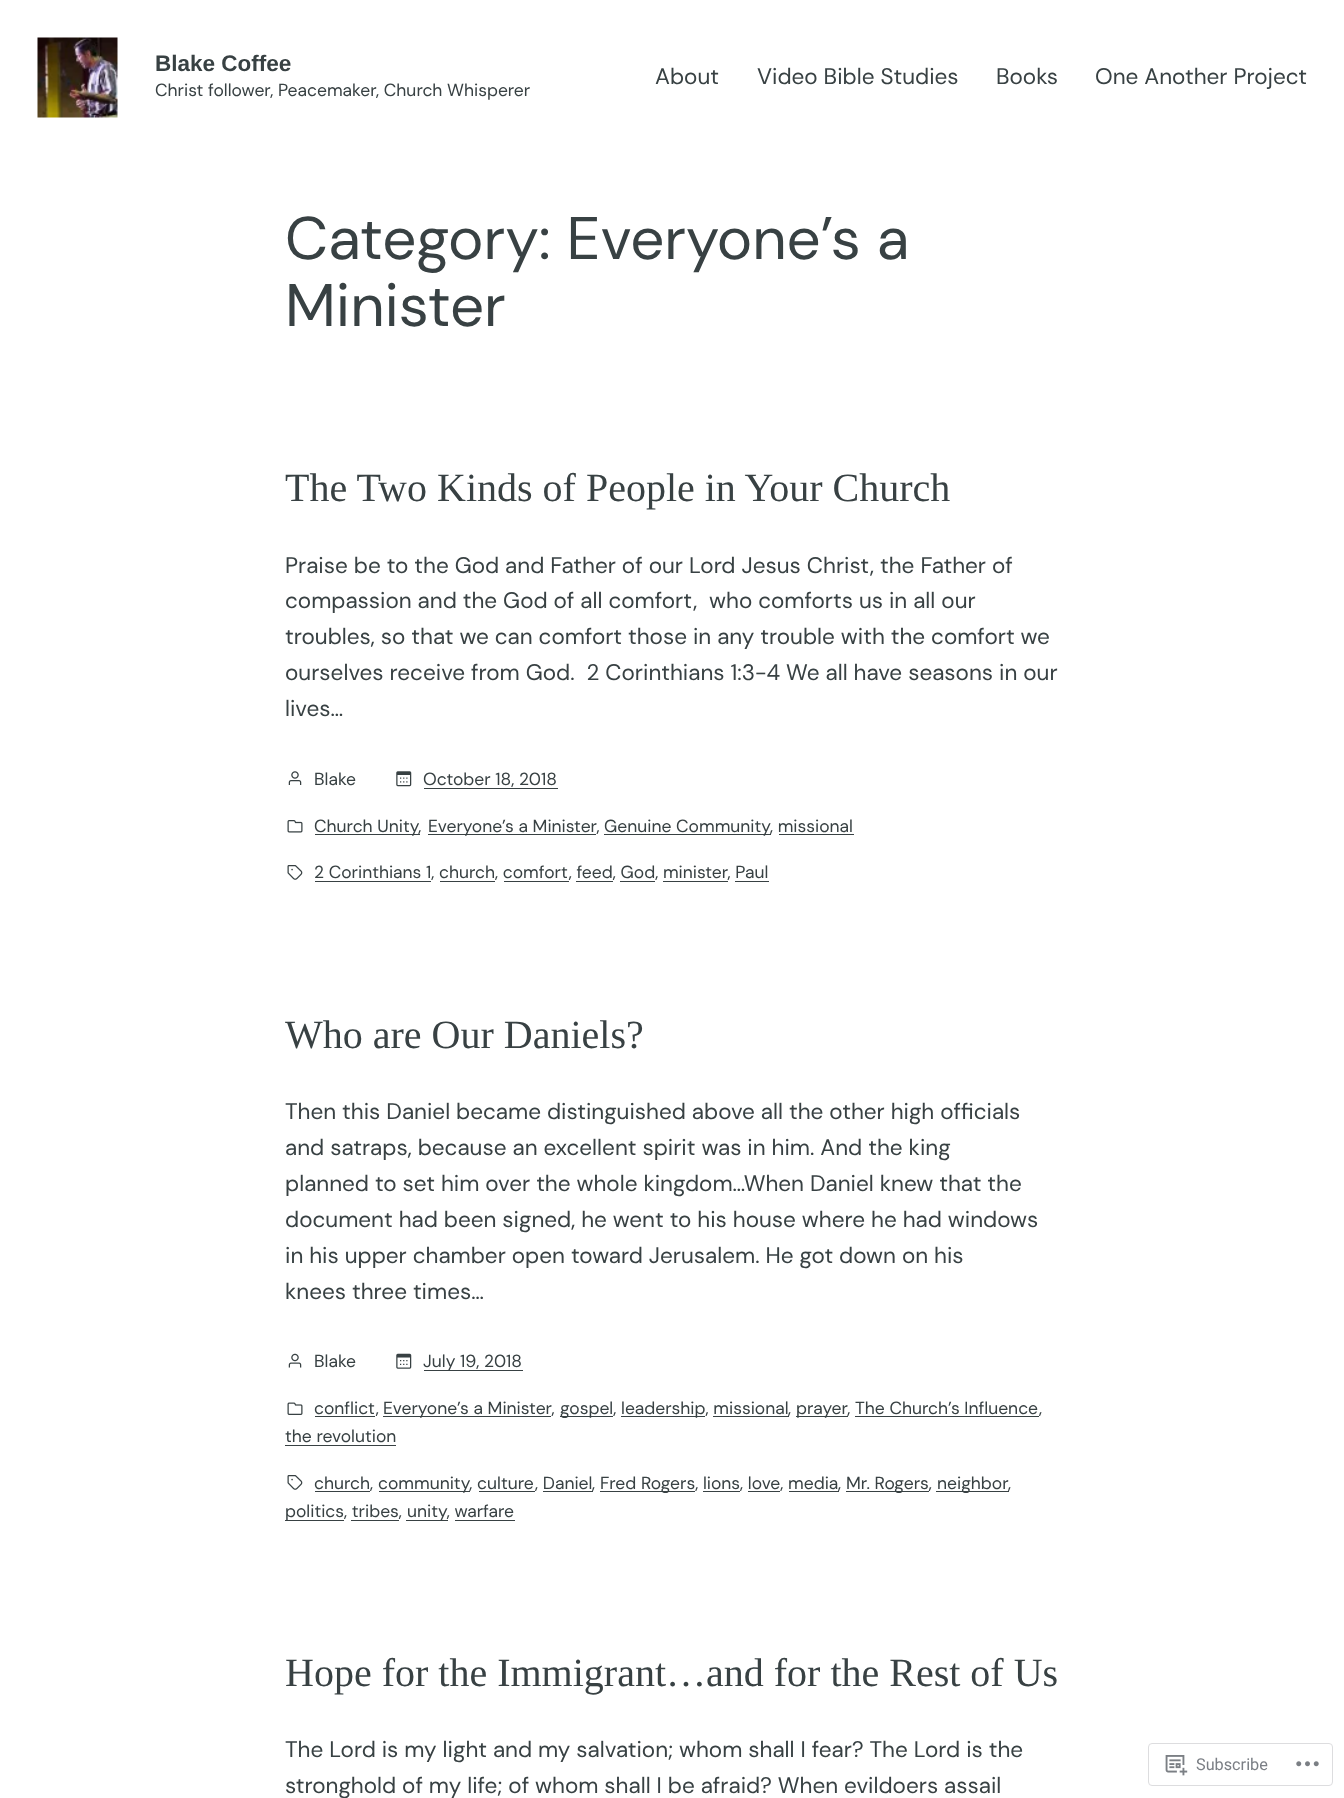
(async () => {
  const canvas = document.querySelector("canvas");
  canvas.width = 1344;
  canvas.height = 1798;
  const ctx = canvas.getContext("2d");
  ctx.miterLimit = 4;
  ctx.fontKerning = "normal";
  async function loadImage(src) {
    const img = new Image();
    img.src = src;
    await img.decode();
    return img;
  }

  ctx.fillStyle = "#ffffff";
  ctx.fillRect(0, 0, 1344, 1798);
  ctx.drawImage(await loadImage("img/1.png"), 37, 37, 81, 81);
  ctx.drawImage(await loadImage("img/2.png"), 288, 771, 14, 14);
  ctx.drawImage(await loadImage("img/3.png"), 396, 771, 16, 16);
  ctx.fillStyle = "#384143";
  ctx.fillRect(424, 788, 134, 1);
  ctx.drawImage(await loadImage("img/4.png"), 287, 820, 16, 13);
  for (const [x, y, w, h, color] of [
    [315, 834, 105, 1, "#384143"],
    [428, 834, 168, 1, "#384143"],
    [604, 834, 167, 1, "#384143"],
    [779, 834, 75, 1, "#384143"],
  ]) {
    ctx.fillStyle = color;
    ctx.fillRect(x, y, w, h);
  }
  ctx.drawImage(await loadImage("img/5.png"), 287, 865, 16, 15);
  for (const [x, y, w, h, color] of [
    [315, 881, 116, 1, "#384143"],
    [440, 881, 55, 1, "#384143"],
    [504, 881, 65, 1, "#384143"],
    [576, 881, 37, 1, "#384143"],
    [620, 881, 35, 1, "#384143"],
    [663, 881, 65, 1, "#384143"],
    [735, 881, 34, 1, "#384143"],
  ]) {
    ctx.fillStyle = color;
    ctx.fillRect(x, y, w, h);
  }
  ctx.drawImage(await loadImage("img/6.png"), 288, 1353, 14, 15);
  ctx.drawImage(await loadImage("img/7.png"), 396, 1353, 16, 16);
  ctx.fillRect(424, 1370, 99, 1);
  ctx.drawImage(await loadImage("img/8.png"), 287, 1402, 16, 13);
  for (const [x, y, w, h, color] of [
    [315, 1416, 60, 1, "#384143"],
    [383, 1416, 168, 1, "#384143"],
    [560, 1416, 53, 1, "#384143"],
    [621, 1416, 84, 1, "#384143"],
    [796, 1416, 52, 1, "#384143"],
    [713, 1416, 76, 1, "#384143"],
    [855, 1416, 184, 1, "#384143"],
    [285, 1445, 111, 1, "#384143"],
  ]) {
    ctx.fillStyle = color;
    ctx.fillRect(x, y, w, h);
  }
  ctx.drawImage(await loadImage("img/5.png"), 287, 1475, 16, 15);
  for (const [x, y, w, h, color] of [
    [315, 1491, 55, 1, "#384143"],
    [379, 1491, 91, 1, "#384143"],
    [600, 1491, 95, 1, "#384143"],
    [846, 1491, 83, 1, "#384143"],
    [936, 1491, 73, 1, "#384143"],
    [479, 1491, 56, 1, "#384143"],
    [543, 1491, 50, 1, "#384143"],
    [703, 1491, 37, 1, "#384143"],
    [748, 1491, 32, 1, "#384143"],
    [789, 1491, 50, 1, "#384143"],
    [285, 1520, 59, 1, "#384143"],
    [406, 1520, 42, 1, "#384143"],
    [351, 1520, 48, 1, "#384143"],
    [455, 1520, 60, 1, "#384143"],
  ]) {
    ctx.fillStyle = color;
    ctx.fillRect(x, y, w, h);
  }
  ctx.beginPath();
  ctx.roundRect(1148.5, 1743.5, 184, 42, 3.5);
  ctx.strokeStyle = "#dddddf";
  ctx.stroke();
  ctx.drawImage(await loadImage("img/9.png"), 1165, 1755, 23, 21);
  ctx.drawImage(await loadImage("img/10.png"), 1296, 1761, 23, 6);
  ctx.font = "bold 22.5px Liberation Sans";
  ctx.fillText("Blake Coffee", 155, 71);
  ctx.font = "17.5px DM Sans";
  ctx.fillText("Christ follower, Peacemaker, Church Whisperer", 155, 96);
  ctx.font = "22.5px DM Sans";
  for (const [text, x, y] of [
    ["About", 655, 84],
    ["Video Bible Studies", 757, 84],
    ["Books", 996, 84],
    ["One Another Project", 1095, 84],
  ]) {
    ctx.fillText(text, x, y);
  }
  ctx.font = "60px DM Sans";
  ctx.fillText("Category: Everyone’s a", 285, 259);
  ctx.fillText("Minister", 285, 326);
  ctx.font = "40px Liberation Serif";
  ctx.fillText("The Two Kinds of People in Your Church", 285, 501);
  ctx.font = "22.5px DM Sans";
  for (const [text, x, y] of [
    ["Praise be to the God and Father of our Lord Jesus Christ, the Father of", 285, 573],
    ["compassion and the God of all comfort,  who comforts us in all our", 285, 608],
    ["troubles, so that we can comfort those in any trouble with the comfort we", 285, 644],
    ["ourselves receive from God.  2 Corinthians 1:3-4 We all have seasons in our", 285, 680],
    ["lives…", 285, 716],
  ]) {
    ctx.fillText(text, x, y);
  }
  ctx.font = "17.5px DM Sans";
  for (const [text, x, y] of [
    ["Blake", 314, 785],
    ["October 18, 2018", 423, 785],
    ["Church Unity,", 314, 832],
    ["Everyone’s a Minister,", 428, 832],
    ["Genuine Community, missional", 604, 832],
    ["2 Corinthians 1, church, comfort, feed, God, minister, Paul", 314, 878],
  ]) {
    ctx.fillText(text, x, y);
  }
  ctx.font = "40px Liberation Serif";
  ctx.fillText("Who are Our Daniels?", 285, 1048);
  ctx.font = "22.5px DM Sans";
  for (const [text, x, y] of [
    ["Then this Daniel became distinguished above all the other high officials", 285, 1119],
    ["and satraps, because an excellent spirit was in him. And the king", 285, 1155],
    ["planned to set him over the whole kingdom…When Daniel knew that the", 285, 1191],
    ["document had been signed, he went to his house where he had windows", 285, 1227],
    ["in his upper chamber open toward Jerusalem. He got down on his", 285, 1263],
    ["knees three times…", 285, 1299],
  ]) {
    ctx.fillText(text, x, y);
  }
  ctx.font = "17.5px DM Sans";
  for (const [text, x, y] of [
    ["Blake", 314, 1367],
    ["July 19, 2018", 423, 1367],
    ["conflict,", 314, 1414],
    ["Everyone’s a Minister,", 383, 1414],
    ["gospel,", 560, 1414],
    ["leadership, missional", 621, 1414],
    [",", 788, 1414],
    ["prayer, The Church’s Influence", 796, 1414],
    [",", 1039, 1414],
    ["the revolution", 285, 1442],
    ["church,", 314, 1489],
    ["community, culture", 378, 1489],
    [", Daniel", 535, 1489],
    [",", 592, 1489],
    ["Fred Rogers, lions, love, media", 600, 1489],
    [",", 838, 1489],
    ["Mr. Rogers,", 846, 1489],
    ["neighbor,", 937, 1489],
    ["politics, tribes,", 285, 1517],
    ["unity, warfare", 407, 1517],
  ]) {
    ctx.fillText(text, x, y);
  }
  ctx.font = "40px Liberation Serif";
  ctx.fillText("Hope for the Immigrant…and for the Rest of Us", 285, 1686);
  ctx.font = "22.5px DM Sans";
  ctx.fillText("The Lord is my light and my salvation; whom shall I fear? The Lord is the", 285, 1757);
  ctx.fillText("stronghold of my life; of whom shall I be afraid? When evildoers assail", 285, 1793);
  ctx.font = "16.25px Roboto";
  ctx.fillStyle = "#7b7f85";
  ctx.fillText("Subscribe", 1196, 1770);
})();
